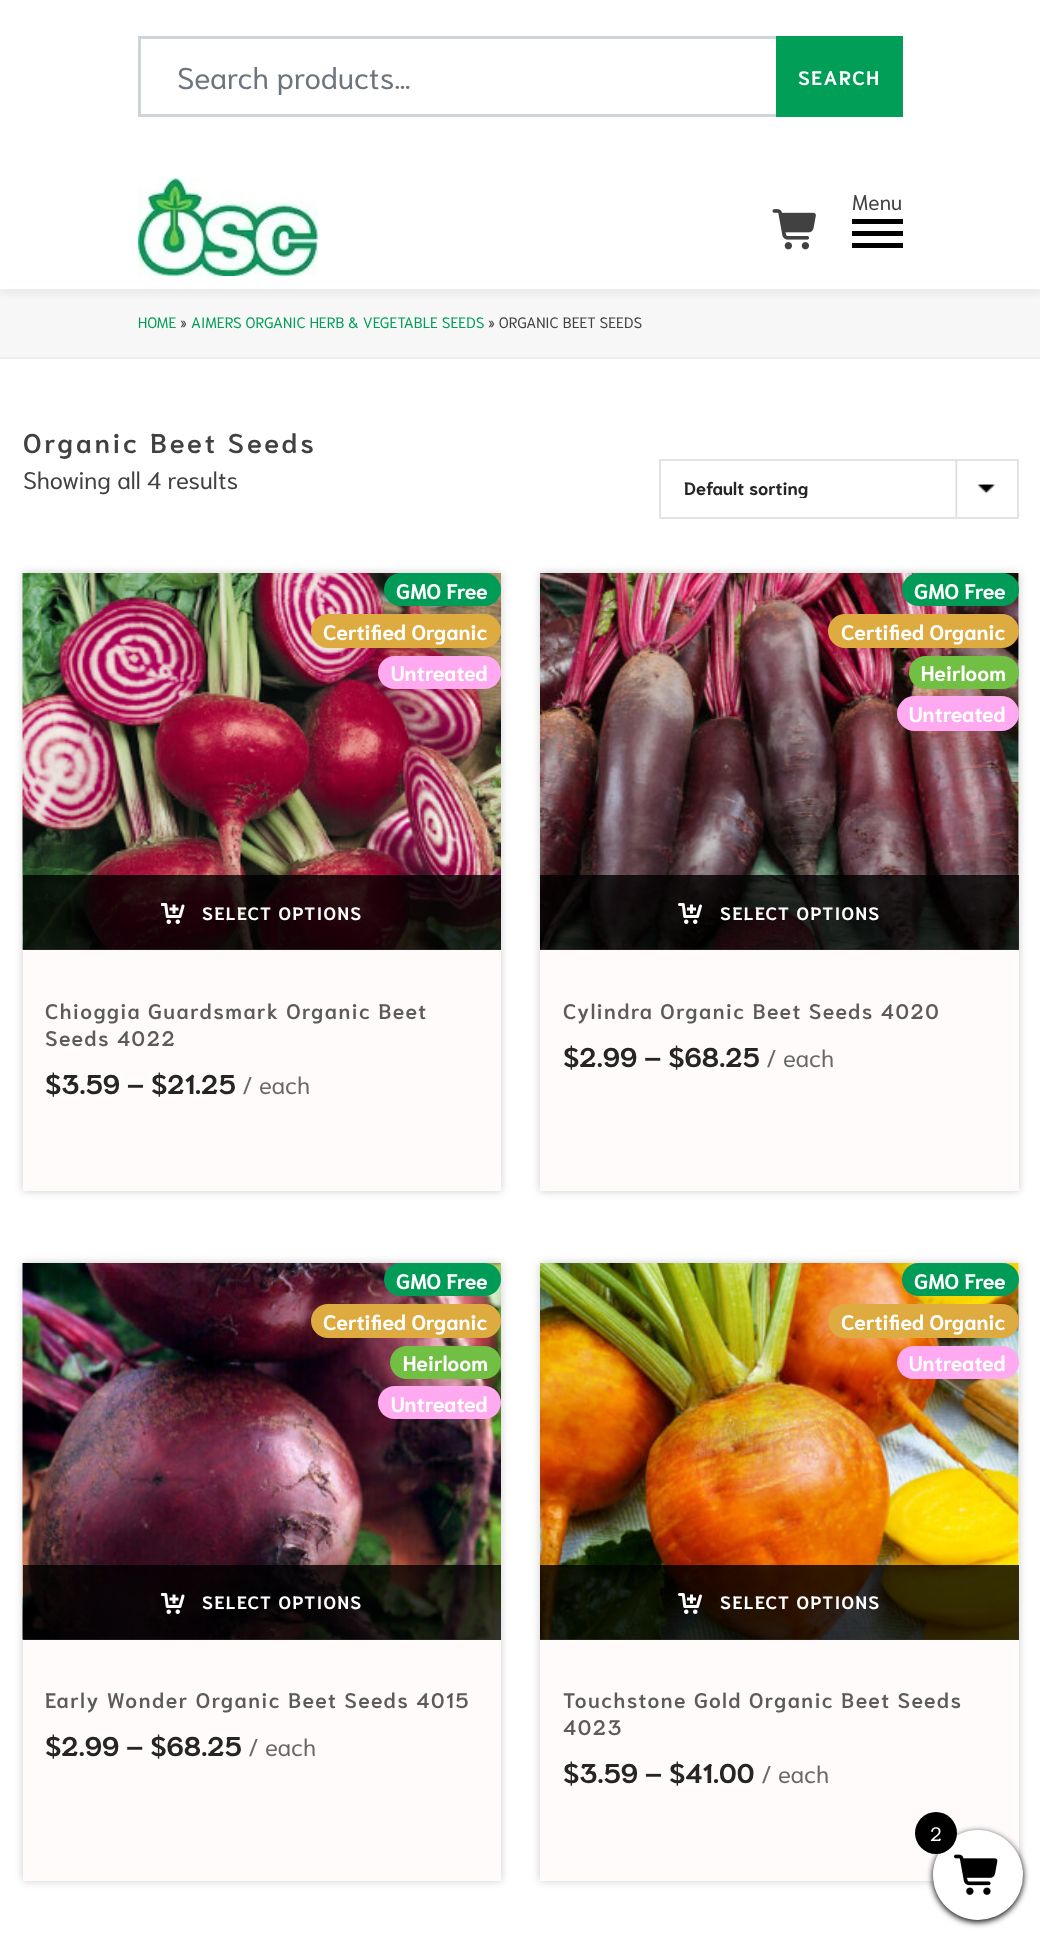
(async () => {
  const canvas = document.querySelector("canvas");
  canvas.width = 1040;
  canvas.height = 1938;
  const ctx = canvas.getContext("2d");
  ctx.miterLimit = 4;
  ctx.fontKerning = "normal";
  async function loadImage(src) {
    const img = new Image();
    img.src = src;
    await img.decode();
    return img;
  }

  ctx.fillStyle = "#ffffff";
  ctx.fillRect(0, 0, 1040, 1938);
  ctx.strokeStyle = "#ced4da";
  ctx.lineWidth = 3;
  ctx.strokeRect(139.5, 37.5, 638, 78);
  ctx.fillStyle = "#019e58";
  ctx.fillRect(776, 36, 127, 81);
  ctx.fillStyle = "#f7f7f7";
  ctx.fillRect(0, 289, 1040, 68);
  ctx.fillStyle = "rgba(0, 0, 0, 0.1)";
  ctx.filter = "blur(4.5px)";
  ctx.beginPath();
  ctx.rect(0, 287, 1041, 5);
  ctx.fill();
  ctx.filter = "none";
  ctx.drawImage(await loadImage("img/1.png"), 138, 178, 180, 98);
  for (const [x, y, w, h, color] of [
    [852, 219, 51, 5, "#000000"],
    [852, 231, 51, 5, "#000000"],
    [852, 243, 51, 5, "#000000"],
  ]) {
    ctx.fillStyle = color;
    ctx.fillRect(x, y, w, h);
  }
  ctx.drawImage(await loadImage("img/2.png"), 772, 209, 44, 41);
  ctx.fillStyle = "#ffffff";
  ctx.fillRect(0, 281, 1040, 8);
  ctx.fillStyle = "#ededed";
  ctx.fillRect(0, 357, 1040, 2);
  ctx.drawImage(await loadImage("img/3.png"), 955, 461, 40, 56);
  ctx.strokeStyle = "#e3e3e3";
  ctx.lineWidth = 2;
  ctx.strokeRect(660, 460, 358, 58);
  ctx.fillStyle = "rgba(0, 0, 0, 0.2)";
  ctx.filter = "blur(4.5px)";
  ctx.beginPath();
  ctx.rect(23, 573, 478, 618);
  ctx.fill();
  ctx.filter = "none";
  ctx.fillStyle = "#fffbfb";
  ctx.fillRect(23, 949, 478, 242);
  ctx.drawImage(await loadImage("img/4.png"), 22, 573, 479, 377);
  ctx.fillStyle = "#009c57";
  ctx.beginPath();
  ctx.roundRect(384, 573, 117, 33, 16.5);
  ctx.fill();
  ctx.fillStyle = "#ddab40";
  ctx.beginPath();
  ctx.roundRect(311, 614, 190, 34, 17);
  ctx.fill();
  ctx.fillStyle = "#ffaaf0";
  ctx.beginPath();
  ctx.roundRect(378, 656, 123, 33, 16.5);
  ctx.fill();
  ctx.fillStyle = "rgba(0, 0, 0, 0.8)";
  ctx.fillRect(23, 875, 478, 75);
  ctx.drawImage(await loadImage("img/5.png"), 161, 903, 24, 21);
  ctx.fillStyle = "rgba(0, 0, 0, 0.2)";
  ctx.filter = "blur(4.5px)";
  ctx.beginPath();
  ctx.rect(540, 573, 479, 618);
  ctx.fill();
  ctx.filter = "none";
  ctx.fillStyle = "#fffbfb";
  ctx.fillRect(540, 573, 479, 618);
  ctx.drawImage(await loadImage("img/6.png"), 540, 573, 479, 377);
  ctx.fillStyle = "#009c57";
  ctx.beginPath();
  ctx.roundRect(902, 573, 117, 33, 16.5);
  ctx.fill();
  ctx.fillStyle = "#ddab40";
  ctx.beginPath();
  ctx.roundRect(828, 614, 191, 34, 17);
  ctx.fill();
  ctx.fillStyle = "#71bf43";
  ctx.beginPath();
  ctx.roundRect(909, 656, 110, 33, 16.5);
  ctx.fill();
  ctx.fillStyle = "#ffaaf0";
  ctx.beginPath();
  ctx.roundRect(897, 696, 122, 35, 17.5);
  ctx.fill();
  ctx.fillStyle = "rgba(0, 0, 0, 0.8)";
  ctx.fillRect(540, 875, 479, 75);
  ctx.drawImage(await loadImage("img/7.png"), 678, 903, 24, 21);
  ctx.fillStyle = "rgba(0, 0, 0, 0.2)";
  ctx.filter = "blur(4.5px)";
  ctx.beginPath();
  ctx.rect(23, 1263, 478, 618);
  ctx.fill();
  ctx.filter = "none";
  ctx.fillStyle = "#fffbfb";
  ctx.fillRect(23, 1639, 478, 242);
  ctx.drawImage(await loadImage("img/8.png"), 22, 1263, 479, 377);
  ctx.fillStyle = "#009c57";
  ctx.beginPath();
  ctx.roundRect(384, 1263, 117, 33, 16.5);
  ctx.fill();
  ctx.fillStyle = "#ddab40";
  ctx.beginPath();
  ctx.roundRect(311, 1304, 190, 34, 17);
  ctx.fill();
  ctx.fillStyle = "#71bf43";
  ctx.beginPath();
  ctx.roundRect(390, 1346, 111, 33, 16.5);
  ctx.fill();
  ctx.fillStyle = "#ffaaf0";
  ctx.beginPath();
  ctx.roundRect(378, 1386, 123, 33, 16.5);
  ctx.fill();
  ctx.fillStyle = "rgba(0, 0, 0, 0.8)";
  ctx.fillRect(23, 1565, 478, 75);
  ctx.drawImage(await loadImage("img/9.png"), 161, 1593, 24, 21);
  ctx.fillStyle = "rgba(0, 0, 0, 0.2)";
  ctx.filter = "blur(4.5px)";
  ctx.beginPath();
  ctx.rect(540, 1263, 479, 618);
  ctx.fill();
  ctx.filter = "none";
  ctx.fillStyle = "#fffbfb";
  ctx.fillRect(540, 1263, 479, 618);
  ctx.drawImage(await loadImage("img/10.png"), 540, 1263, 479, 377);
  ctx.fillStyle = "#009c57";
  ctx.beginPath();
  ctx.roundRect(902, 1263, 117, 33, 16.5);
  ctx.fill();
  ctx.fillStyle = "#ddab40";
  ctx.beginPath();
  ctx.roundRect(828, 1304, 191, 34, 17);
  ctx.fill();
  ctx.fillStyle = "#ffaaf0";
  ctx.beginPath();
  ctx.roundRect(897, 1346, 122, 33, 16.5);
  ctx.fill();
  ctx.fillStyle = "rgba(0, 0, 0, 0.8)";
  ctx.fillRect(540, 1565, 479, 75);
  ctx.drawImage(await loadImage("img/11.png"), 678, 1593, 24, 21);
  ctx.fillStyle = "#000000";
  ctx.filter = "blur(3px)";
  ctx.beginPath();
  ctx.roundRect(933, 1832, 90, 90, 45);
  ctx.fill();
  ctx.filter = "none";
  ctx.fillStyle = "#ffffff";
  ctx.beginPath();
  ctx.arc(978, 1875, 45, 0, Math.PI * 2);
  ctx.fill();
  ctx.fillStyle = "#000000";
  ctx.beginPath();
  ctx.arc(936, 1833, 21, 0, Math.PI * 2);
  ctx.fill();
  ctx.drawImage(await loadImage("img/12.png"), 954, 1854, 44, 41);
  ctx.save();
  ctx.beginPath();
  ctx.rect(177, 56, 536, 39);
  ctx.clip();
  ctx.font = "30px Niramit";
  ctx.fillStyle = "#6c757d";
  ctx.fillText("Search products…", 177, 89);
  ctx.restore();
  ctx.letterSpacing = "1.5px";
  ctx.font = "bold 19.5px Niramit";
  ctx.fillStyle = "#ffffff";
  ctx.fillText("SEARCH", 798, 85);
  ctx.letterSpacing = "0px";
  ctx.font = "21px Niramit";
  ctx.fillStyle = "#414141";
  ctx.fillText("Menu", 852, 210);
  ctx.font = "15px Niramit";
  ctx.fillStyle = "#019e58";
  ctx.fillText("HOME", 138, 328);
  ctx.fillStyle = "#414141";
  ctx.fillText("»", 180, 328);
  ctx.fillStyle = "#019e58";
  ctx.fillText("AIMERS ORGANIC HERB & VEGETABLE SEEDS", 191, 328);
  ctx.fillStyle = "#414141";
  ctx.fillText("» ORGANIC BEET SEEDS", 488, 328);
  ctx.letterSpacing = "3px";
  ctx.font = "600 27px Niramit";
  ctx.fillText("Organic Beet Seeds", 23, 453);
  ctx.letterSpacing = "0px";
  ctx.font = "24px Niramit";
  ctx.fillText("Showing all 4 results", 23, 489);
  ctx.save();
  ctx.beginPath();
  ctx.rect(684, 477, 315, 21);
  ctx.clip();
  ctx.font = "bold 18px Niramit";
  ctx.fillStyle = "#252525";
  ctx.fillText("Default sorting", 684, 495);
  ctx.restore();
  ctx.font = "bold 21px Niramit";
  ctx.fillStyle = "#ffffff";
  for (const [text, x, y] of [
    ["GMO Free", 396, 599],
    ["Certified Organic", 323, 640],
    ["Untreated", 391, 681],
  ]) {
    ctx.fillText(text, x, y);
  }
  ctx.letterSpacing = "1.5px";
  ctx.font = "bold 18px Niramit";
  ctx.fillText("SELECT OPTIONS", 202, 920);
  ctx.font = "600 21px Niramit";
  ctx.fillStyle = "#5b5b5b";
  ctx.fillText("Chioggia Guardsmark Organic Beet", 45, 1019);
  ctx.fillText("Seeds 4022", 45, 1046);
  ctx.letterSpacing = "0px";
  ctx.font = "bold 27px Niramit";
  ctx.fillStyle = "#252525";
  ctx.fillText("$3.59 – $21.25", 45, 1094);
  ctx.font = "24px Niramit";
  ctx.fillStyle = "#686868";
  ctx.fillText("/ each", 242, 1094);
  ctx.font = "bold 21px Niramit";
  ctx.fillStyle = "#ffffff";
  for (const [text, x, y] of [
    ["GMO Free", 914, 599],
    ["Certified Organic", 841, 640],
    ["Heirloom", 921, 681],
    ["Untreated", 909, 722],
  ]) {
    ctx.fillText(text, x, y);
  }
  ctx.letterSpacing = "1.5px";
  ctx.font = "bold 18px Niramit";
  ctx.fillText("SELECT OPTIONS", 720, 920);
  ctx.font = "600 21px Niramit";
  ctx.fillStyle = "#5b5b5b";
  ctx.fillText("Cylindra Organic Beet Seeds 4020", 563, 1019);
  ctx.letterSpacing = "0px";
  ctx.font = "bold 27px Niramit";
  ctx.fillStyle = "#252525";
  ctx.fillText("$2.99 – $68.25", 563, 1067);
  ctx.font = "24px Niramit";
  ctx.fillStyle = "#686868";
  ctx.fillText("/ each", 766, 1067);
  ctx.font = "bold 21px Niramit";
  ctx.fillStyle = "#ffffff";
  for (const [text, x, y] of [
    ["GMO Free", 396, 1289],
    ["Certified Organic", 323, 1330],
    ["Heirloom", 403, 1371],
    ["Untreated", 391, 1412],
  ]) {
    ctx.fillText(text, x, y);
  }
  ctx.letterSpacing = "1.5px";
  ctx.font = "bold 18px Niramit";
  ctx.fillText("SELECT OPTIONS", 202, 1609);
  ctx.font = "600 21px Niramit";
  ctx.fillStyle = "#5b5b5b";
  ctx.fillText("Early Wonder Organic Beet Seeds 4015", 45, 1708);
  ctx.letterSpacing = "0px";
  ctx.font = "bold 27px Niramit";
  ctx.fillStyle = "#252525";
  ctx.fillText("$2.99 – $68.25", 45, 1756);
  ctx.font = "24px Niramit";
  ctx.fillStyle = "#686868";
  ctx.fillText("/ each", 248, 1756);
  ctx.font = "bold 21px Niramit";
  ctx.fillStyle = "#ffffff";
  for (const [text, x, y] of [
    ["GMO Free", 914, 1289],
    ["Certified Organic", 841, 1330],
    ["Untreated", 909, 1371],
  ]) {
    ctx.fillText(text, x, y);
  }
  ctx.letterSpacing = "1.5px";
  ctx.font = "bold 18px Niramit";
  ctx.fillText("SELECT OPTIONS", 720, 1609);
  ctx.font = "600 21px Niramit";
  ctx.fillStyle = "#5b5b5b";
  ctx.fillText("Touchstone Gold Organic Beet Seeds", 563, 1708);
  ctx.fillText("4023", 563, 1735);
  ctx.letterSpacing = "0px";
  ctx.font = "bold 27px Niramit";
  ctx.fillStyle = "#252525";
  ctx.fillText("$3.59 – $41.00", 563, 1783);
  ctx.font = "24px Niramit";
  ctx.fillStyle = "#686868";
  ctx.fillText("/ each", 761, 1783);
  ctx.font = "19.5px Niramit";
  ctx.fillStyle = "#ffffff";
  ctx.fillText("2", 930, 1841);
})();
